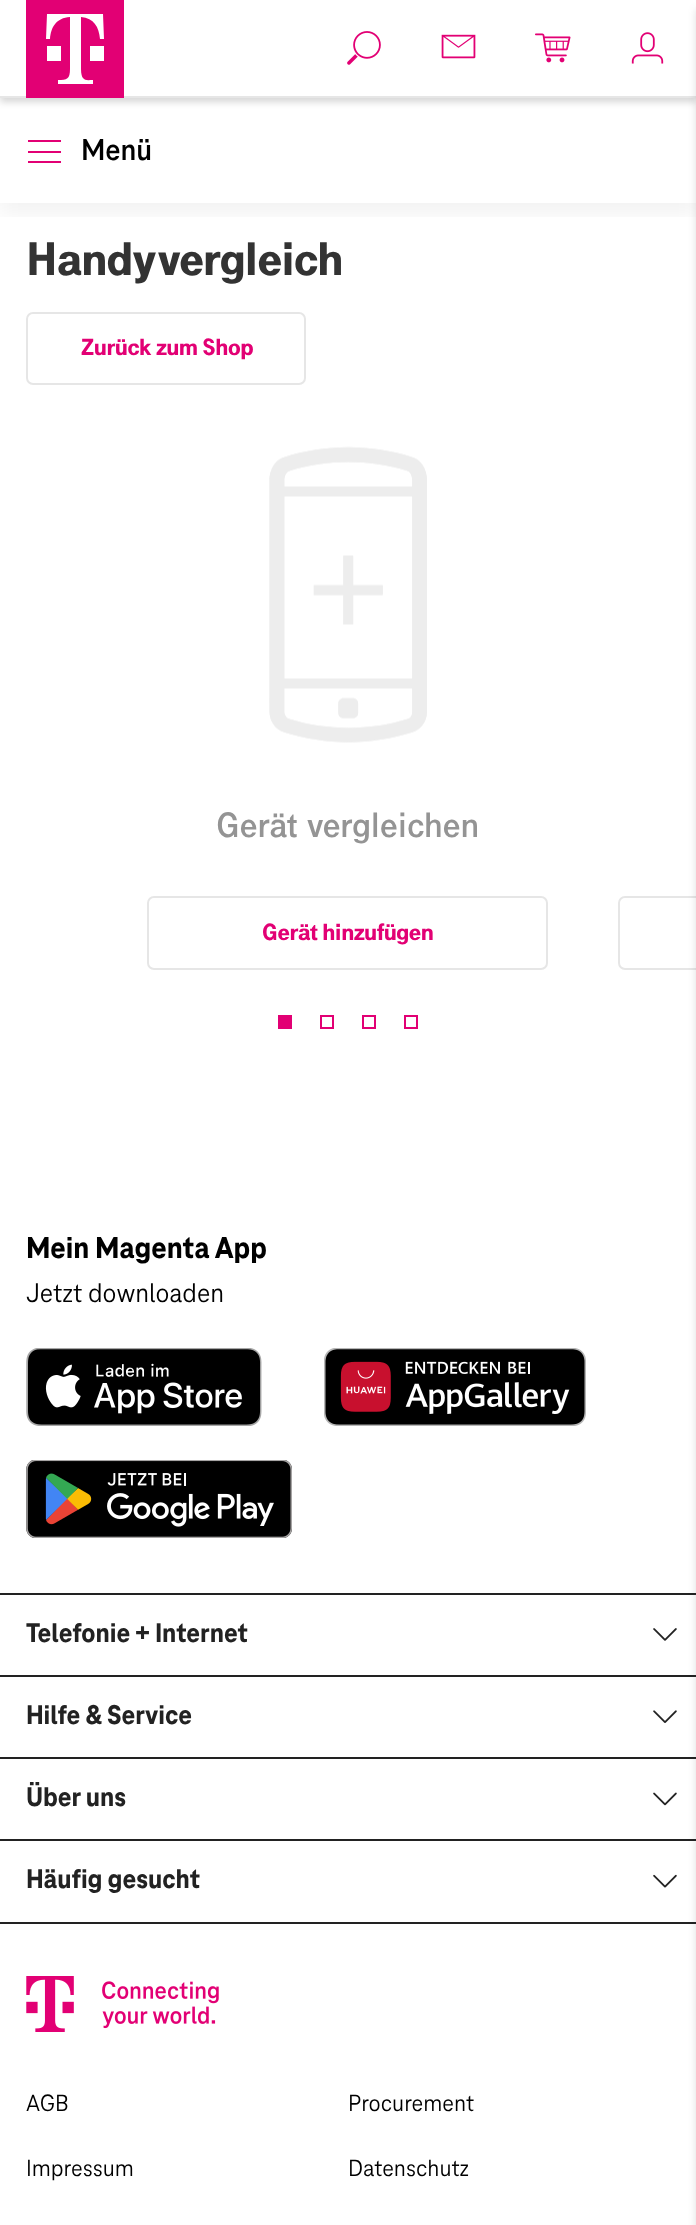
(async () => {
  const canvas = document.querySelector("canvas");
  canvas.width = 696;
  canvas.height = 2225;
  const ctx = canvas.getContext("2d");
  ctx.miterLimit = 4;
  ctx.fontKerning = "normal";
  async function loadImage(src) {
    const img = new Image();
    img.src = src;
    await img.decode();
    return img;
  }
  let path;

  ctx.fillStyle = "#ffffff";
  ctx.fillRect(0, 0, 696, 2225);
  ctx.fillStyle = "rgba(0, 0, 0, 0.16)";
  ctx.filter = "blur(3.5px)";
  ctx.beginPath();
  ctx.rect(0, 4, 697, 98);
  ctx.fill();
  ctx.filter = "none";
  ctx.save();
  ctx.beginPath();
  ctx.rect(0, 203, 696, 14);
  ctx.clip();
  ctx.fillStyle = "rgba(0, 0, 0, 0.05)";
  ctx.filter = "blur(10.5px)";
  ctx.beginPath();
  ctx.rect(0, 109, 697, 105);
  ctx.fill();
  ctx.filter = "none";
  ctx.restore();
  for (const [x, y, w, h, color] of [
    [0, 0, 696, 96, "#ffffff"],
    [0, 96, 696, 2, "#e6e6e6"],
    [26, 0, 98, 98, "#e20074"],
    [47, 46, 14, 15, "#ffffff"],
    [90, 46, 14, 15, "#ffffff"],
  ]) {
    ctx.fillStyle = color;
    ctx.fillRect(x, y, w, h);
  }
  path = new Path2D("M83 78C82 77 81 74 81 69V17C94 18 99 27 100 39H104L103 14H47L46 39H50C51 27 56 18 70 17V69C70 79 67 80 58 80V84H93V80C89 80 85 81 83 78Z");
  ctx.fill(path);
  ctx.drawImage(await loadImage("img/1.png"), 347, 31, 34, 34);
  ctx.drawImage(await loadImage("img/2.png"), 441, 34, 35, 25);
  ctx.drawImage(await loadImage("img/3.png"), 535, 33, 36, 30);
  ctx.drawImage(await loadImage("img/4.png"), 631, 32, 33, 32);
  for (const [x, y, w, h, color] of [
    [28, 140, 33, 2, "#e20074"],
    [28, 151, 33, 2, "#e20074"],
    [28, 161, 33, 2, "#e20074"],
  ]) {
    ctx.fillStyle = color;
    ctx.fillRect(x, y, w, h);
  }
  ctx.beginPath();
  ctx.roundRect(619, 897, 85, 72, 6);
  ctx.strokeStyle = "#e6e6e6";
  ctx.lineWidth = 2;
  ctx.stroke();
  for (const [x, y, w, h, color] of [
    [0, 1593, 696, 2, "#222222"],
    [0, 1922, 696, 2, "#222222"],
    [0, 1675, 696, 2, "#222222"],
    [0, 1757, 696, 2, "#222222"],
    [0, 1839, 696, 2, "#222222"],
  ]) {
    ctx.fillStyle = color;
    ctx.fillRect(x, y, w, h);
  }
  ctx.fillStyle = "rgba(50, 50, 50, 0.2)";
  ctx.filter = "blur(4.5px)";
  ctx.beginPath();
  ctx.rect(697, 9, 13, 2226);
  ctx.fill();
  ctx.filter = "none";
  ctx.beginPath();
  ctx.roundRect(27, 313, 278, 71, 6);
  ctx.stroke();
  ctx.drawImage(await loadImage("img/5.png"), 269, 446, 158, 297);
  ctx.beginPath();
  ctx.roundRect(148, 897, 399, 72, 6);
  ctx.stroke();
  ctx.fillStyle = "#e20074";
  ctx.fillRect(278, 1015, 14, 14);
  ctx.strokeStyle = "#e20074";
  ctx.strokeRect(321, 1016, 12, 12);
  ctx.strokeRect(363, 1016, 12, 12);
  ctx.strokeRect(405, 1016, 12, 12);
  ctx.drawImage(await loadImage("img/6.png"), 26, 1348, 236, 78);
  ctx.drawImage(await loadImage("img/7.png"), 324, 1348, 262, 78);
  ctx.drawImage(await loadImage("img/8.png"), 26, 1460, 266, 78);
  ctx.drawImage(await loadImage("img/9.png"), 653, 1628, 24, 13);
  ctx.drawImage(await loadImage("img/10.png"), 653, 1710, 24, 13);
  ctx.drawImage(await loadImage("img/11.png"), 653, 1792, 24, 14);
  ctx.drawImage(await loadImage("img/12.png"), 653, 1874, 24, 14);
  ctx.drawImage(await loadImage("img/13.png"), 26, 1976, 193, 56);
  ctx.font = "bold 31.5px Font";
  ctx.fillStyle = "#000000";
  ctx.fillText("Menü", 81, 160);
  ctx.font = "800 49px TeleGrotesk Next";
  ctx.fillStyle = "#333333";
  ctx.fillText("Handyvergleich", 26, 275);
  ctx.font = "800 24.5px TeleGrotesk Next";
  ctx.fillStyle = "#e20074";
  ctx.fillText("Zurück zum Shop", 81, 355);
  ctx.font = "bold 36.75px TeleGrotesk Next";
  ctx.fillStyle = "#949494";
  ctx.fillText("Gerät vergleichen", 216, 837);
  ctx.font = "800 24.5px TeleGrotesk Next";
  ctx.fillStyle = "#e20074";
  ctx.fillText("Gerät hinzufügen", 262, 940);
  ctx.font = "800 31.5px Font";
  ctx.fillStyle = "#000000";
  ctx.fillText("Mein Magenta App", 26, 1258);
  ctx.font = "28px Font";
  ctx.fillText("Jetzt downloaden", 26, 1302);
  ctx.font = "800 28px Font";
  ctx.fillStyle = "#222222";
  for (const [text, x, y] of [
    ["Telefonie + Internet", 26, 1642],
    ["Hilfe & Service", 26, 1724],
    ["Über uns", 26, 1806],
    ["Häufig gesucht", 26, 1888],
  ]) {
    ctx.fillText(text, x, y);
  }
  ctx.font = "24.5px Font";
  ctx.fillStyle = "#000000";
  for (const [text, x, y] of [
    ["AGB", 26, 2111],
    ["Procurement", 348, 2111],
    ["Impressum", 26, 2176],
    ["Datenschutz", 348, 2176],
  ]) {
    ctx.fillText(text, x, y);
  }
})();
